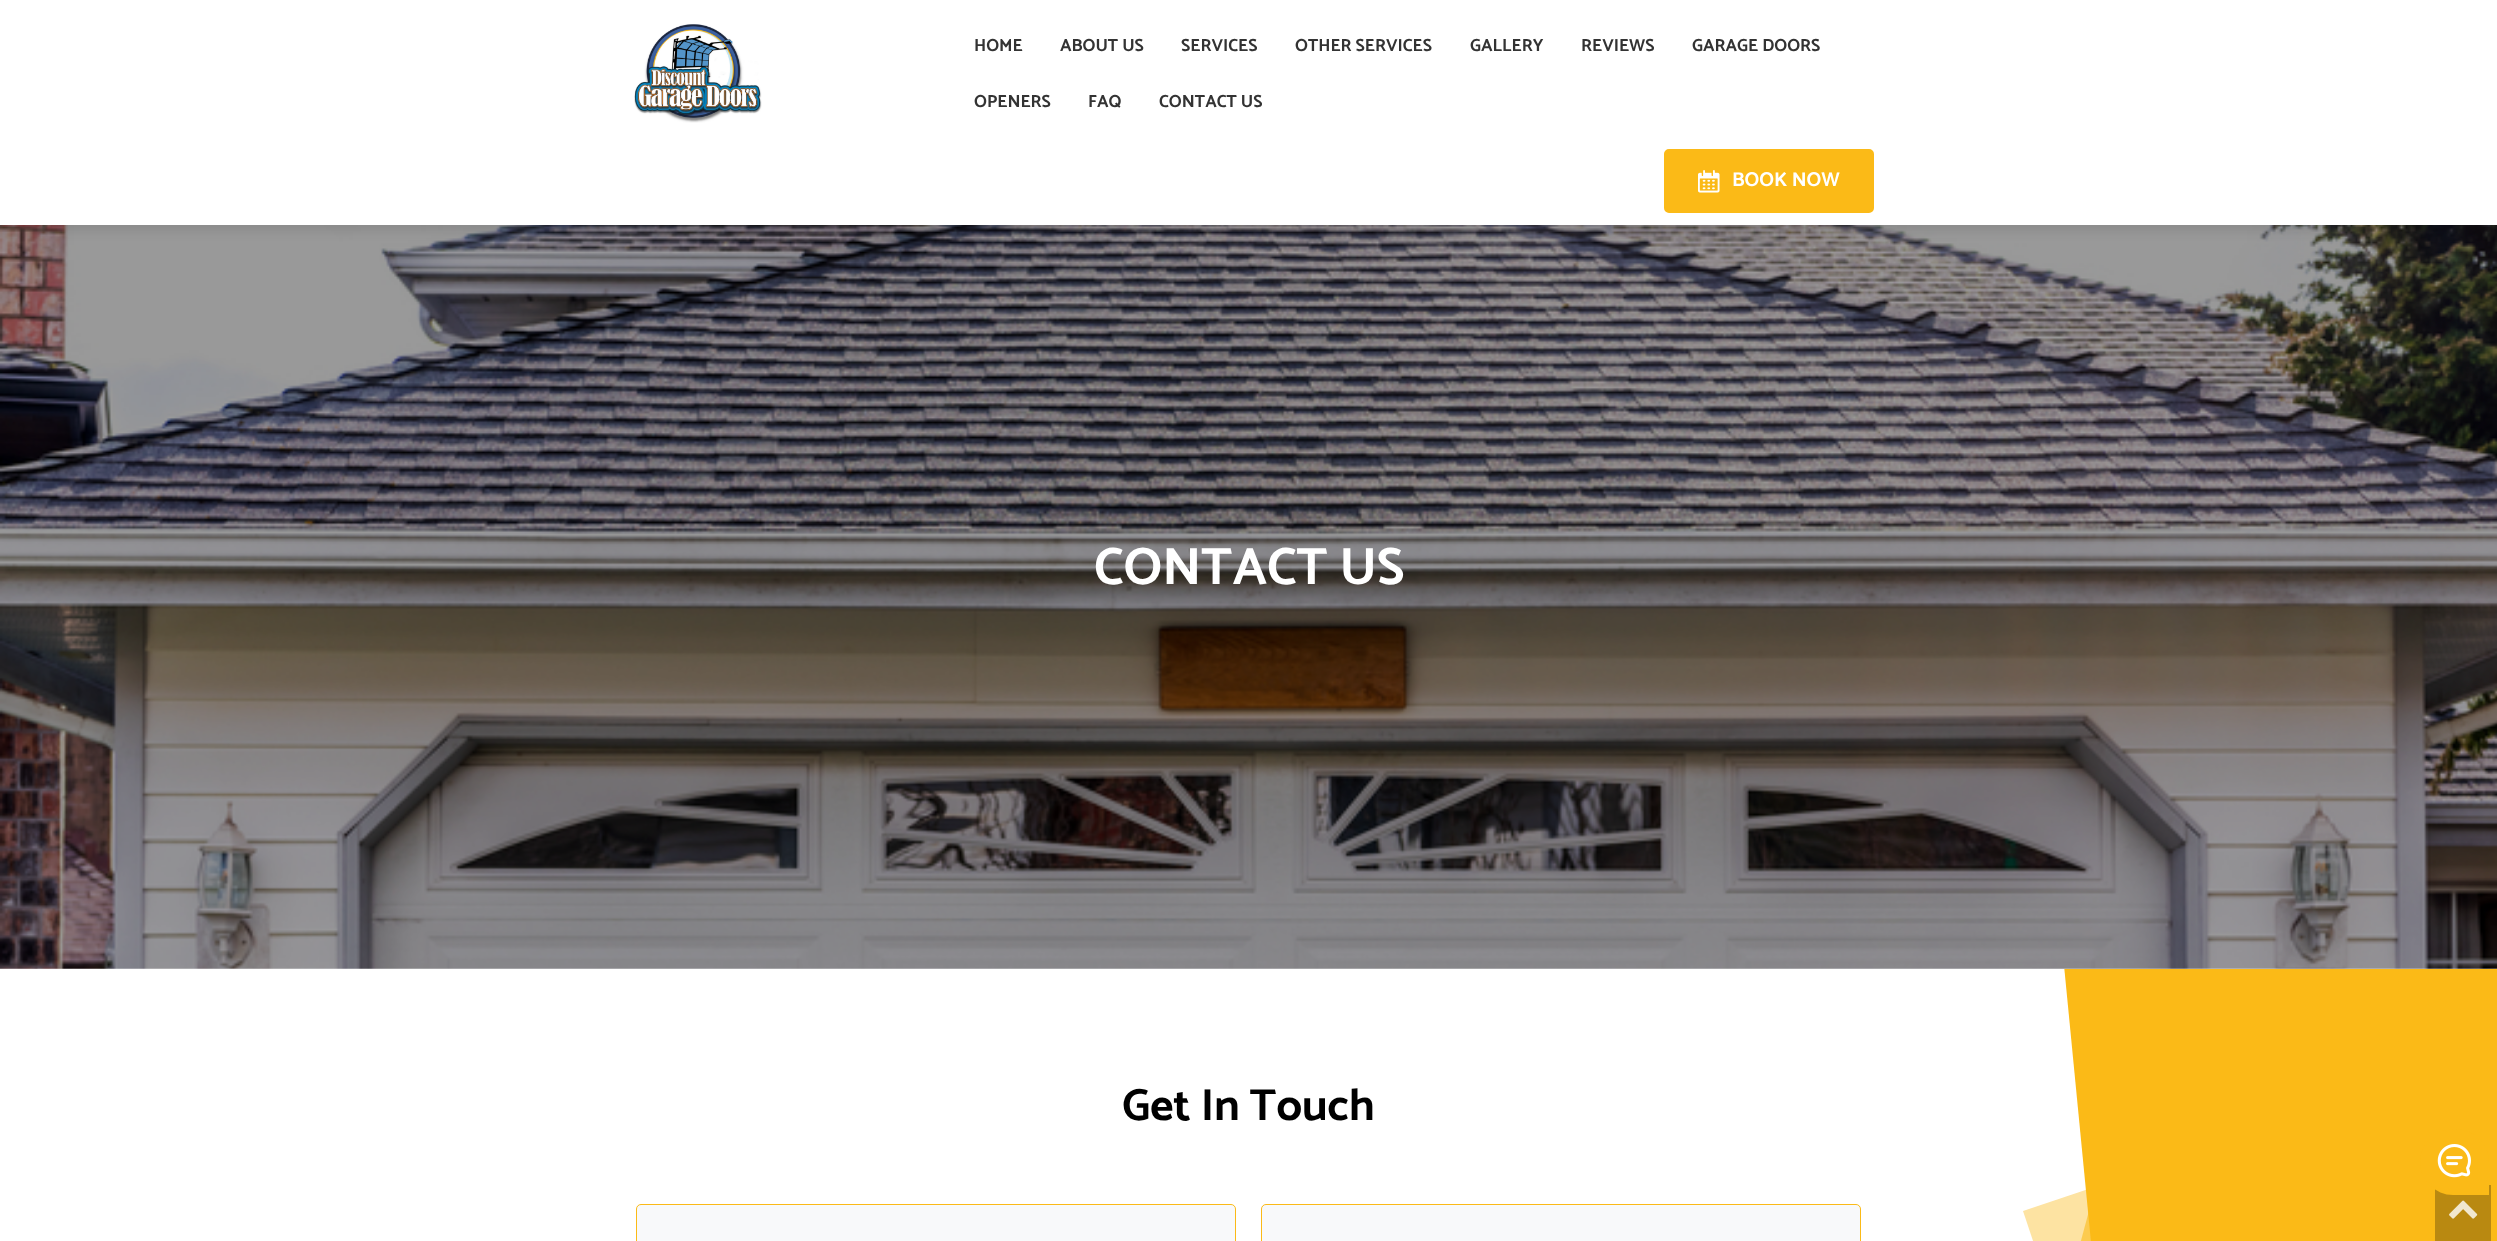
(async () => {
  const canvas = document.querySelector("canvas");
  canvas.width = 2497;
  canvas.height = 1241;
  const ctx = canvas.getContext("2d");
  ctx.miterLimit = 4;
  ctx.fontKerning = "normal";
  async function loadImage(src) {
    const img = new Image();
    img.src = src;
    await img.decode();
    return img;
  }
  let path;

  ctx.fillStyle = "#ffffff";
  ctx.fillRect(0, 0, 2497, 1241);
  ctx.drawImage(await loadImage("img/4.png"), 0, 225, 2497, 744);
  ctx.fillStyle = "rgba(0, 0, 0, 0.1)";
  ctx.filter = "blur(6px)";
  ctx.beginPath();
  ctx.rect(0, 5, 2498, 225);
  ctx.fill();
  ctx.filter = "none";
  ctx.fillStyle = "#ffffff";
  ctx.fillRect(0, 0, 2497, 225);
  ctx.drawImage(await loadImage("img/1.png"), 634, 24, 128, 99);
  ctx.fillStyle = "#fbba17";
  ctx.beginPath();
  ctx.roundRect(1665.5, 150.5, 207, 61, 3.5);
  ctx.fill();
  ctx.strokeStyle = "#fbba17";
  ctx.lineWidth = 3;
  ctx.stroke();
  ctx.drawImage(await loadImage("img/2.png"), 1698, 170, 22, 23);
  ctx.fillStyle = "#fde3a2";
  path = new Path2D("M2023 1211L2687 988L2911 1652L2246 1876Z");
  ctx.fill(path);
  ctx.save();
  ctx.beginPath();
  ctx.rect(0, 969, 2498, 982);
  ctx.clip();
  ctx.fillStyle = "rgba(251, 186, 23, 0.6)";
  path = new Path2D("M2199 801L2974 1008L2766 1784L1991 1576Z");
  ctx.fill(path);
  ctx.fillStyle = "#fbba17";
  path = new Path2D("M2063 955L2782 886L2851 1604L2133 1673Z");
  ctx.fill(path);
  ctx.restore();
  ctx.fillStyle = "#b98911";
  ctx.fillRect(2435, 1185, 56, 56);
  ctx.drawImage(await loadImage("img/3.png"), 2449, 1200, 29, 19);
  ctx.fillStyle = "#f8f9fa";
  ctx.beginPath();
  ctx.roundRect(636.5, 1204.5, 599, 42, 4.5);
  ctx.fill();
  ctx.lineWidth = 1;
  ctx.stroke();
  ctx.beginPath();
  ctx.roundRect(1261.5, 1204.5, 599, 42, 4.5);
  ctx.fill();
  ctx.stroke();
  ctx.fillStyle = "#fbba17";
  ctx.beginPath();
  ctx.roundRect(2420, 1129, 69, 66, [33, 33, 0, 33]);
  ctx.fill();
  ctx.drawImage(await loadImage("img/5.png"), 2437, 1144, 34, 34);
  ctx.font = "bold 17.5px Catamaran";
  ctx.fillStyle = "#333333";
  for (const [text, x, y] of [
    ["HOME", 974, 51],
    ["ABOUT US", 1060, 51],
    ["SERVICES", 1181, 51],
    ["OTHER SERVICES", 1295, 51],
    ["GALLERY", 1470, 51],
    ["REVIEWS", 1581, 51],
    ["GARAGE DOORS", 1692, 51],
    ["OPENERS", 974, 107],
    ["FAQ", 1088, 107],
    ["CONTACT US", 1159, 107],
  ]) {
    ctx.fillText(text, x, y);
  }
  ctx.font = "bold 20px Catamaran";
  ctx.fillStyle = "#ffffff";
  ctx.fillText("BOOK NOW", 1732, 186);
  ctx.font = "bold 52.5px Catamaran";
  ctx.fillText("CONTACT US", 1094, 584);
  ctx.font = "bold 45px Catamaran";
  ctx.fillStyle = "#000000";
  ctx.fillText("Get In Touch", 1122, 1120);
})();
